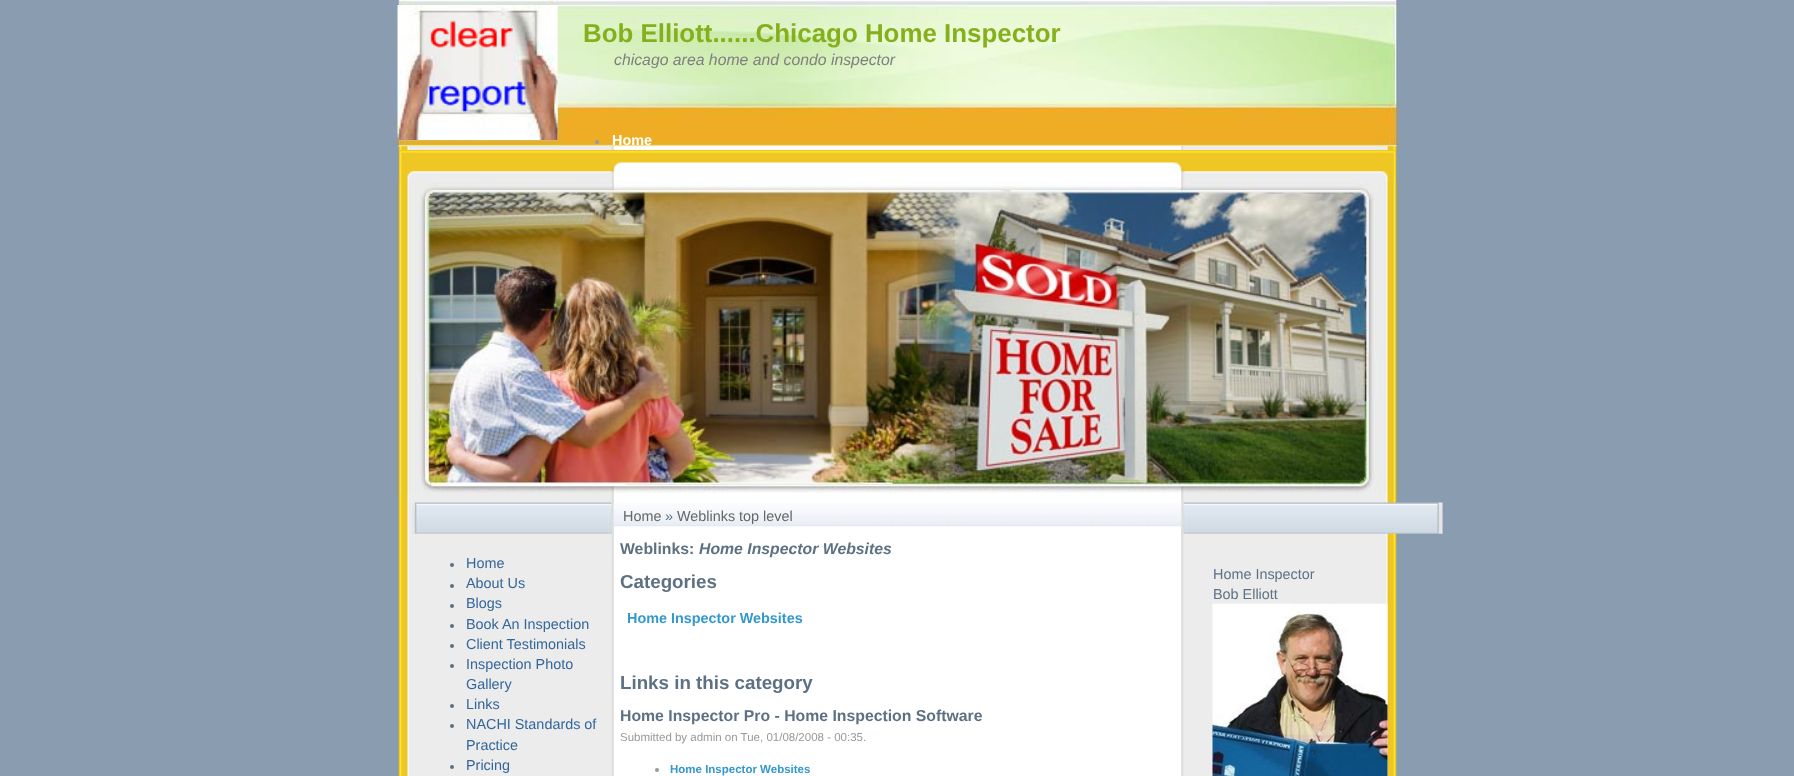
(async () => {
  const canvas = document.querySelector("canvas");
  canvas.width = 1794;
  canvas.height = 776;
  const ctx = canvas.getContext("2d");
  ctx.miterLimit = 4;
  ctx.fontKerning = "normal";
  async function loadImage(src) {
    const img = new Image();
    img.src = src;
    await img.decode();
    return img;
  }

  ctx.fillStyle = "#899cb0";
  ctx.fillRect(0, 0, 1794, 776);
  ctx.drawImage(await loadImage("img/1.png"), 398, 146, 999, 630);
  ctx.drawImage(await loadImage("img/2.png"), 397, 0, 1001, 147);
  ctx.drawImage(await loadImage("img/3.png"), 397, 5, 161, 135);
  ctx.fillStyle = "#999999";
  ctx.beginPath();
  ctx.arc(597, 142, 2, 0, Math.PI * 2);
  ctx.fill();
  ctx.drawImage(await loadImage("img/4.png"), 398, 150, 997, 31);
  ctx.drawImage(await loadImage("img/5.png"), 397, 181, 1001, 313);
  ctx.drawImage(await loadImage("img/6.png"), 412, 502, 7, 32);
  ctx.drawImage(await loadImage("img/7.png"), 418, 502, 191, 32);
  ctx.drawImage(await loadImage("img/8.png"), 608, 502, 4, 32);
  ctx.fillStyle = "#5d7183";
  ctx.beginPath();
  ctx.arc(452, 565, 2, 0, Math.PI * 2);
  ctx.fill();
  ctx.beginPath();
  ctx.arc(452, 586, 2, 0, Math.PI * 2);
  ctx.fill();
  ctx.beginPath();
  ctx.arc(452, 606, 2, 0, Math.PI * 2);
  ctx.fill();
  ctx.beginPath();
  ctx.arc(452, 626, 2, 0, Math.PI * 2);
  ctx.fill();
  ctx.beginPath();
  ctx.arc(452, 646, 2, 0, Math.PI * 2);
  ctx.fill();
  ctx.beginPath();
  ctx.arc(452, 666, 2, 0, Math.PI * 2);
  ctx.fill();
  ctx.beginPath();
  ctx.arc(452, 706, 2, 0, Math.PI * 2);
  ctx.fill();
  ctx.beginPath();
  ctx.arc(452, 726, 2, 0, Math.PI * 2);
  ctx.fill();
  ctx.beginPath();
  ctx.arc(452, 767, 2, 0, Math.PI * 2);
  ctx.fill();
  ctx.drawImage(await loadImage("img/9.png"), 613, 503, 569, 24);
  ctx.fillStyle = "#999999";
  ctx.beginPath();
  ctx.arc(657, 770, 2, 0, Math.PI * 2);
  ctx.fill();
  ctx.drawImage(await loadImage("img/10.png"), 1183, 502, 4, 32);
  ctx.drawImage(await loadImage("img/11.png"), 1186, 502, 249, 32);
  ctx.drawImage(await loadImage("img/12.png"), 1435, 502, 8, 32);
  ctx.drawImage(await loadImage("img/13.png"), 1212, 603, 176, 173);
  ctx.font = "bold 25.9px Liberation Sans";
  ctx.fillStyle = "#85b01c";
  ctx.fillText("Bob Elliott......Chicago Home Inspector", 583, 42);
  ctx.font = "italic 15.8px Liberation Sans";
  ctx.fillStyle = "#7f7f7f";
  ctx.fillText("chicago area home and condo inspector", 614, 65);
  ctx.font = "bold 14.4px Liberation Sans";
  ctx.fillStyle = "#ffffff";
  ctx.fillText("Home", 612, 145);
  ctx.font = "14.4px Liberation Sans";
  ctx.fillStyle = "#336699";
  for (const [text, x, y] of [
    ["Home", 466, 568],
    ["About Us", 466, 588],
    ["Blogs", 466, 608],
    ["Book An Inspection", 466, 629],
    ["Client Testimonials", 466, 649],
    ["Inspection Photo", 466, 669],
    ["Gallery", 466, 689],
    ["Links", 466, 709],
    ["NACHI Standards of", 466, 729],
    ["Practice", 466, 750],
    ["Pricing", 466, 770],
  ]) {
    ctx.fillText(text, x, y);
  }
  ctx.fillStyle = "#666666";
  ctx.fillText("Home", 623, 521);
  ctx.fillStyle = "#5d7183";
  ctx.fillText("»", 665, 521);
  ctx.fillStyle = "#666666";
  ctx.fillText("Weblinks top level", 677, 521);
  ctx.font = "bold 15.8px Liberation Sans";
  ctx.fillStyle = "#5d7183";
  ctx.fillText("Weblinks:", 620, 554);
  ctx.font = "italic bold 15.8px Liberation Sans";
  ctx.fillText("Home Inspector Websites", 699, 554);
  ctx.font = "bold 18.75px Liberation Sans";
  ctx.fillText("Categories", 620, 588);
  ctx.font = "bold 14.4px Liberation Sans";
  ctx.fillStyle = "#3399cc";
  ctx.fillText("Home Inspector Websites", 627, 623);
  ctx.font = "bold 18.75px Liberation Sans";
  ctx.fillStyle = "#5d7183";
  ctx.fillText("Links in this category", 620, 689);
  ctx.font = "bold 15.8px Liberation Sans";
  ctx.fillText("Home Inspector Pro - Home Inspection Software", 620, 721);
  ctx.font = "11.5px Liberation Sans";
  ctx.fillStyle = "#999999";
  ctx.fillText("Submitted by admin on Tue, 01/08/2008 - 00:35.", 620, 741);
  ctx.font = "bold 11.5px Liberation Sans";
  ctx.fillStyle = "#3399cc";
  ctx.fillText("Home Inspector Websites", 670, 773);
  ctx.font = "14.4px Liberation Sans";
  ctx.fillStyle = "#5d7183";
  ctx.fillText("Home Inspector", 1213, 579);
  ctx.fillText("Bob Elliott", 1213, 599);
})();
